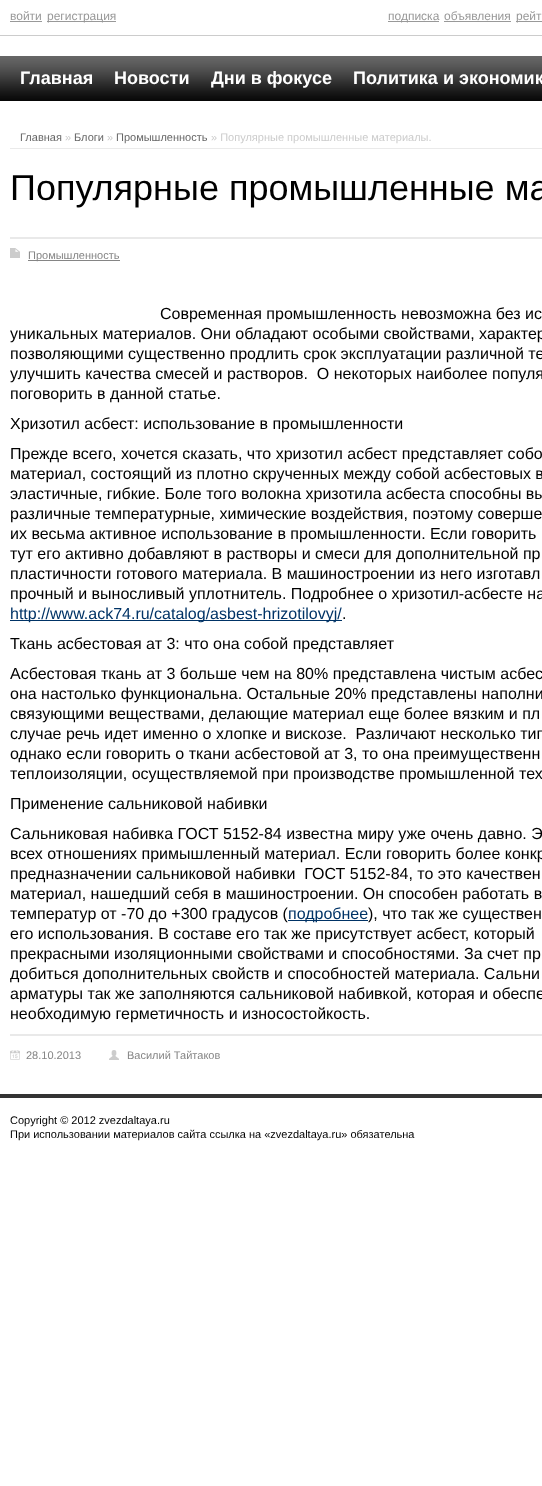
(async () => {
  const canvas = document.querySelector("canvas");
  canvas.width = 542;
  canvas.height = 1486;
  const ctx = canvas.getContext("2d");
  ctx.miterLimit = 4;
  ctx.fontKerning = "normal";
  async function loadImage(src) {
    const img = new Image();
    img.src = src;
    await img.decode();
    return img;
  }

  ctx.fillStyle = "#ffffff";
  ctx.fillRect(0, 0, 542, 1486);
  for (const [x, y, w, h, color] of [
    [0, 35, 542, 1, "#cccccc"],
    [10, 21, 32, 1, "#999999"],
    [47, 21, 69, 1, "#999999"],
    [388, 21, 51, 1, "#999999"],
    [444, 21, 67, 1, "#999999"],
    [516, 21, 26, 1, "#999999"],
  ]) {
    ctx.fillStyle = color;
    ctx.fillRect(x, y, w, h);
  }
  ctx.drawImage(await loadImage("img/1.png"), 0, 56, 542, 45);
  ctx.fillStyle = "#eaeaea";
  ctx.fillRect(10, 148, 532, 1);
  ctx.fillStyle = "#e9e9e9";
  ctx.fillRect(10, 237, 532, 2);
  ctx.drawImage(await loadImage("img/2.png"), 10, 248, 10, 10);
  for (const [x, y, w, h, color] of [
    [28, 260, 92, 1, "#858585"],
    [10, 620, 332, 1, "#003366"],
    [288, 920, 80, 1, "#003366"],
    [10, 1034, 532, 2, "#e9e9e9"],
  ]) {
    ctx.fillStyle = color;
    ctx.fillRect(x, y, w, h);
  }
  ctx.drawImage(await loadImage("img/3.png"), 10, 1050, 10, 10);
  ctx.drawImage(await loadImage("img/4.png"), 109, 1050, 10, 10);
  ctx.fillStyle = "#333333";
  ctx.fillRect(0, 1094, 542, 4);
  ctx.font = "12px Liberation Sans";
  ctx.fillStyle = "#999999";
  for (const [text, x, y] of [
    ["войти", 10, 20],
    ["регистрация", 47, 20],
    ["подписка", 388, 20],
    ["объявления", 444, 20],
    ["рейт", 516, 20],
  ]) {
    ctx.fillText(text, x, y);
  }
  ctx.font = "bold 18px Liberation Sans";
  ctx.fillStyle = "#ffffff";
  for (const [text, x, y] of [
    ["Главная", 20, 84],
    ["Новости", 114, 84],
    ["Дни в фокусе", 211, 84],
    ["Политика и экономик", 353, 84],
  ]) {
    ctx.fillText(text, x, y);
  }
  ctx.font = "11px Liberation Sans";
  ctx.fillStyle = "#666666";
  ctx.fillText("Главная", 20, 141);
  ctx.fillStyle = "#cccccc";
  ctx.fillText("»", 65, 141);
  ctx.fillStyle = "#666666";
  ctx.fillText("Блоги", 74, 141);
  ctx.fillStyle = "#cccccc";
  ctx.fillText("»", 107, 141);
  ctx.fillStyle = "#666666";
  ctx.fillText("Промышленность", 116, 141);
  ctx.fillStyle = "#cccccc";
  ctx.fillText("» Популярные промышленные материалы.", 211, 141);
  ctx.font = "36px Liberation Sans";
  ctx.fillStyle = "#000000";
  ctx.fillText("Популярные промышленные ма", 10, 200);
  ctx.font = "11px Liberation Sans";
  ctx.fillStyle = "#858585";
  ctx.fillText("Промышленность", 28, 259);
  ctx.font = "16px Liberation Sans";
  ctx.fillStyle = "#000000";
  for (const [text, x, y] of [
    ["Современная промышленность невозможна без ис", 160, 319],
    ["уникальных материалов. Они обладают особыми свойствами, характер", 10, 339],
    ["позволяющими существенно продлить срок эксплуатации различной те", 10, 359],
    ["улучшить качества смесей и растворов.  О некоторых наиболее популя", 10, 379],
    ["поговорить в данной статье.", 10, 399],
    ["Хризотил асбест: использование в промышленности", 10, 429],
    ["Прежде всего, хочется сказать, что хризотил асбест представляет собо", 10, 459],
    ["материал, состоящий из плотно скрученных между собой асбестовых в", 10, 479],
    ["эластичные, гибкие. Боле того волокна хризотила асбеста способны вы", 10, 499],
    ["различные температурные, химические воздействия, поэтому соверше", 10, 519],
    ["их весьма активное использование в промышленности. Если говорить", 10, 539],
    ["тут его активно добавляют в растворы и смеси для дополнительной пр", 10, 559],
    ["пластичности готового материала. В машиностроении из него изготавл", 10, 579],
    ["прочный и выносливый уплотнитель. Подробнее о хризотил-асбесте на", 10, 599],
  ]) {
    ctx.fillText(text, x, y);
  }
  ctx.fillStyle = "#003366";
  ctx.fillText("http://www.ack74.ru/catalog/asbest-hrizotilovyj/", 10, 619);
  ctx.fillStyle = "#000000";
  for (const [text, x, y] of [
    [".", 342, 619],
    ["Ткань асбестовая ат 3: что она собой представляет", 10, 649],
    ["Асбестовая ткань ат 3 больше чем на 80% представлена чистым асбес", 10, 679],
    ["она настолько функциональна. Остальные 20% представлены наполни", 10, 699],
    ["связующими веществами, делающие материал еще более вязким и пл", 10, 719],
    ["случае речь идет именно о хлопке и вискозе.  Различают несколько тип", 10, 739],
    ["однако если говорить о ткани асбестовой ат 3, то она преимущественн", 10, 759],
    ["теплоизоляции, осуществляемой при производстве промышленной тех", 10, 779],
    ["Применение сальниковой набивки", 10, 809],
    ["Сальниковая набивка ГОСТ 5152-84 известна миру уже очень давно. Э", 10, 839],
    ["всех отношениях примышленный материал. Если говорить более конкр", 10, 859],
    ["предназначении сальниковой набивки  ГОСТ 5152-84, то это качествен", 10, 879],
    ["материал, нашедший себя в машиностроении. Он способен работать в", 10, 899],
    ["температур от -70 до +300 градусов (", 10, 919],
  ]) {
    ctx.fillText(text, x, y);
  }
  ctx.fillStyle = "#003366";
  ctx.fillText("подробнее", 288, 919);
  ctx.fillStyle = "#000000";
  for (const [text, x, y] of [
    ["), что так же существен", 368, 919],
    ["его использования. В составе его так же присутствует асбест, который", 10, 939],
    ["прекрасными изоляционными свойствами и способностями. За счет пр", 10, 959],
    ["добиться дополнительных свойств и способностей материала. Сальни", 10, 979],
    ["арматуры так же заполняются сальниковой набивкой, которая и обеспе", 10, 999],
    ["необходимую герметичность и износостойкость.", 10, 1019],
  ]) {
    ctx.fillText(text, x, y);
  }
  ctx.font = "11px Liberation Sans";
  ctx.fillStyle = "#858585";
  ctx.fillText("28.10.2013", 26, 1059);
  ctx.fillText("Василий Тайтаков", 127, 1059);
  ctx.fillStyle = "#000000";
  ctx.fillText("Copyright © 2012 zvezdaltaya.ru", 10, 1124);
  ctx.fillText("При использовании материалов сайта ссылка на «zvezdaltaya.ru» обязательна", 10, 1138);
})();
